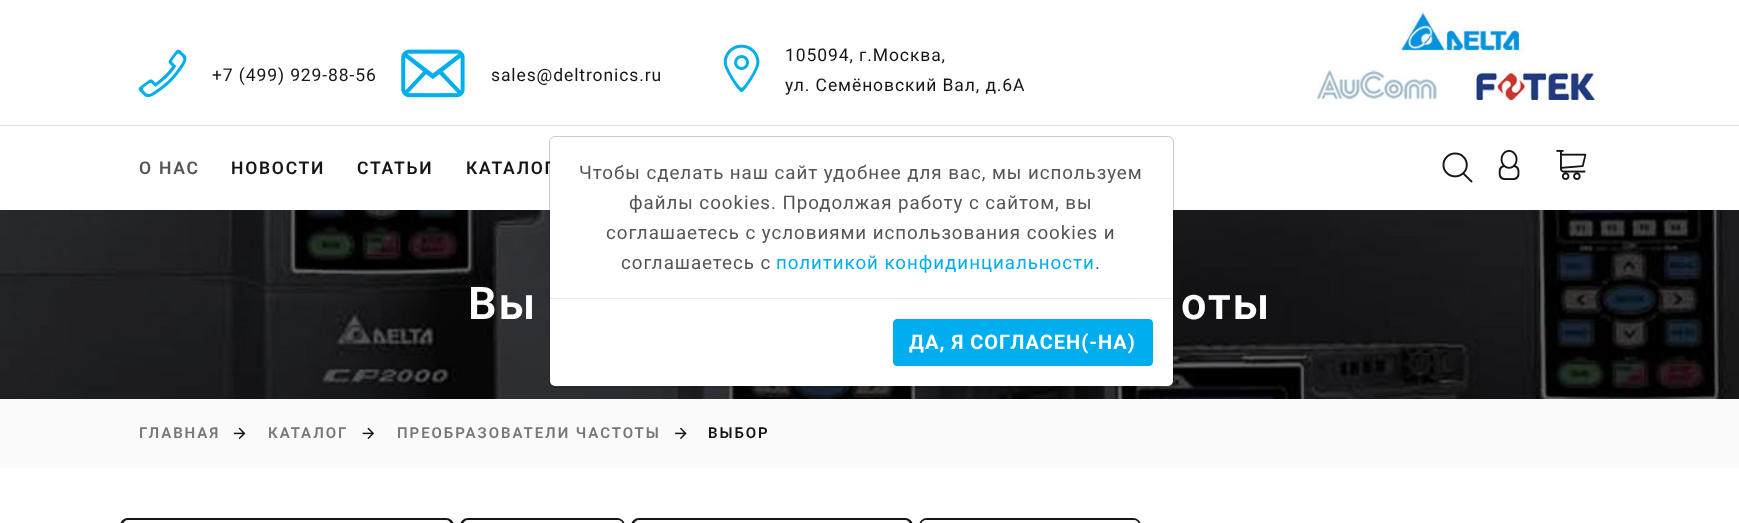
(async () => {
  const canvas = document.querySelector("canvas");
  canvas.width = 1739;
  canvas.height = 523;
  const ctx = canvas.getContext("2d");
  ctx.miterLimit = 4;
  ctx.fontKerning = "normal";
  async function loadImage(src) {
    const img = new Image();
    img.src = src;
    await img.decode();
    return img;
  }

  ctx.fillStyle = "#ffffff";
  ctx.fillRect(0, 0, 1739, 523);
  ctx.drawImage(await loadImage("img/1.png"), 138, 49, 49, 49);
  ctx.drawImage(await loadImage("img/2.png"), 401, 49, 64, 49);
  ctx.drawImage(await loadImage("img/3.png"), 723, 44, 37, 49);
  ctx.drawImage(await loadImage("img/4.png"), 1315, 12, 280, 88);
  ctx.fillStyle = "#e1e1e1";
  ctx.fillRect(0, 125, 1739, 1);
  ctx.drawImage(await loadImage("img/5.png"), 1442, 152, 31, 31);
  ctx.drawImage(await loadImage("img/6.png"), 1498, 150, 22, 30);
  ctx.drawImage(await loadImage("img/7.png"), 1556, 150, 31, 30);
  ctx.drawImage(await loadImage("img/8.png"), 0, 210, 1739, 189);
  ctx.fillStyle = "#f9faf9";
  ctx.fillRect(0, 399, 1739, 69);
  ctx.drawImage(await loadImage("img/9.png"), 233, 427, 13, 13);
  ctx.drawImage(await loadImage("img/10.png"), 362, 427, 13, 13);
  ctx.drawImage(await loadImage("img/11.png"), 675, 427, 12, 13);
  ctx.beginPath();
  ctx.roundRect(121.5, 519.5, 331, 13, 6.5);
  ctx.strokeStyle = "#151515";
  ctx.lineWidth = 3;
  ctx.stroke();
  ctx.beginPath();
  ctx.roundRect(632.5, 519.5, 279, 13, 6.5);
  ctx.stroke();
  ctx.letterSpacing = "0.9px";
  ctx.font = "17.5px Roboto";
  ctx.fillStyle = "#151515";
  for (const [text, x, y] of [
    ["+7 (499) 929-88-56", 212, 81],
    ["sales@deltronics.ru", 491, 81],
    ["105094, г.Москва,", 785, 61],
    ["ул. Семёновский Вал, д.6А", 785, 91],
  ]) {
    ctx.fillText(text, x, y);
  }
  ctx.letterSpacing = "1.75px";
  ctx.font = "600 17.5px Roboto";
  ctx.fillStyle = "#555555";
  ctx.fillText("О НАС", 139, 174);
  ctx.fillStyle = "#151515";
  for (const [text, x, y] of [
    ["НОВОСТИ", 231, 174],
    ["СТАТЬИ", 357, 174],
    ["КАТАЛОГ", 466, 174],
  ]) {
    ctx.fillText(text, x, y);
  }
  ctx.fillStyle = "#ffffff";
  ctx.beginPath();
  ctx.roundRect(550, 138, 623, 248, 5);
  ctx.fill();
  ctx.beginPath();
  ctx.roundRect(549.5, 136.5, 624, 251, 5.5);
  ctx.strokeStyle = "rgba(0, 0, 0, 0.2)";
  ctx.lineWidth = 1;
  ctx.stroke();
  ctx.letterSpacing = "0.95px";
  ctx.font = "18.75px Roboto";
  ctx.fillStyle = "#555555";
  for (const [text, x, y] of [
    ["Чтобы сделать наш сайт удобнее для вас, мы используем", 579, 179],
    ["файлы cookies. Продолжая работу с сайтом, вы", 629, 209],
    ["соглашаетесь с условиями использования cookies и", 606, 239],
    ["соглашаетесь с", 621, 269],
  ]) {
    ctx.fillText(text, x, y);
  }
  ctx.fillStyle = "#00aeef";
  ctx.fillText("политикой конфидинциальности", 776, 269);
  ctx.fillStyle = "#555555";
  ctx.fillText(".", 1095, 269);
  ctx.fillStyle = "#e9ecef";
  ctx.fillRect(550, 298, 623, 1);
  ctx.fillStyle = "#00aeef";
  ctx.beginPath();
  ctx.roundRect(893.5, 319.5, 259, 46, 3.5);
  ctx.fill();
  ctx.strokeStyle = "#00aeef";
  ctx.stroke();
  ctx.letterSpacing = "1px";
  ctx.font = "bold 20px Roboto";
  ctx.fillStyle = "#ffffff";
  ctx.fillText("ДА, Я СОГЛАСЕН(-НА)", 909, 349);
  ctx.letterSpacing = "2px";
  ctx.font = "600 45px Roboto";
  ctx.fillText("Вы", 468, 319);
  ctx.fillText("оты", 1181, 319);
  ctx.letterSpacing = "1.95px";
  ctx.font = "600 15px Roboto";
  ctx.fillStyle = "#777777";
  for (const [text, x, y] of [
    ["ГЛАВНАЯ", 139, 438],
    ["КАТАЛОГ", 268, 438],
    ["ПРЕОБРАЗОВАТЕЛИ ЧАСТОТЫ", 397, 438],
  ]) {
    ctx.fillText(text, x, y);
  }
  ctx.fillStyle = "#151515";
  ctx.fillText("ВЫБОР", 708, 438);
  ctx.save();
  ctx.beginPath();
  ctx.roundRect(123, 520, 328, 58, 5);
  ctx.clip();
  ctx.fillStyle = "#ffffff";
  ctx.beginPath();
  ctx.roundRect(106, 368, 362, 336, 180.5);
  ctx.fill();
  ctx.restore();
  ctx.beginPath();
  ctx.roundRect(461.5, 519.5, 162, 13, 6.5);
  ctx.strokeStyle = "#151515";
  ctx.lineWidth = 3;
  ctx.stroke();
  ctx.save();
  ctx.beginPath();
  ctx.roundRect(463, 520, 160, 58, 5);
  ctx.clip();
  ctx.fillStyle = "#ffffff";
  ctx.beginPath();
  ctx.roundRect(455, 461, 176, 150, 87.5);
  ctx.fill();
  ctx.restore();
  ctx.save();
  ctx.beginPath();
  ctx.roundRect(634, 520, 276, 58, 5);
  ctx.clip();
  ctx.fillStyle = "#ffffff";
  ctx.beginPath();
  ctx.roundRect(620, 396, 304, 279, 152);
  ctx.fill();
  ctx.restore();
  ctx.beginPath();
  ctx.roundRect(920.5, 519.5, 219, 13, 6.5);
  ctx.stroke();
  ctx.save();
  ctx.beginPath();
  ctx.roundRect(921, 520, 218, 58, 5);
  ctx.clip();
  ctx.fillStyle = "#ffffff";
  ctx.beginPath();
  ctx.roundRect(910, 429, 239, 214, 119.5);
  ctx.fill();
  ctx.restore();
})();
